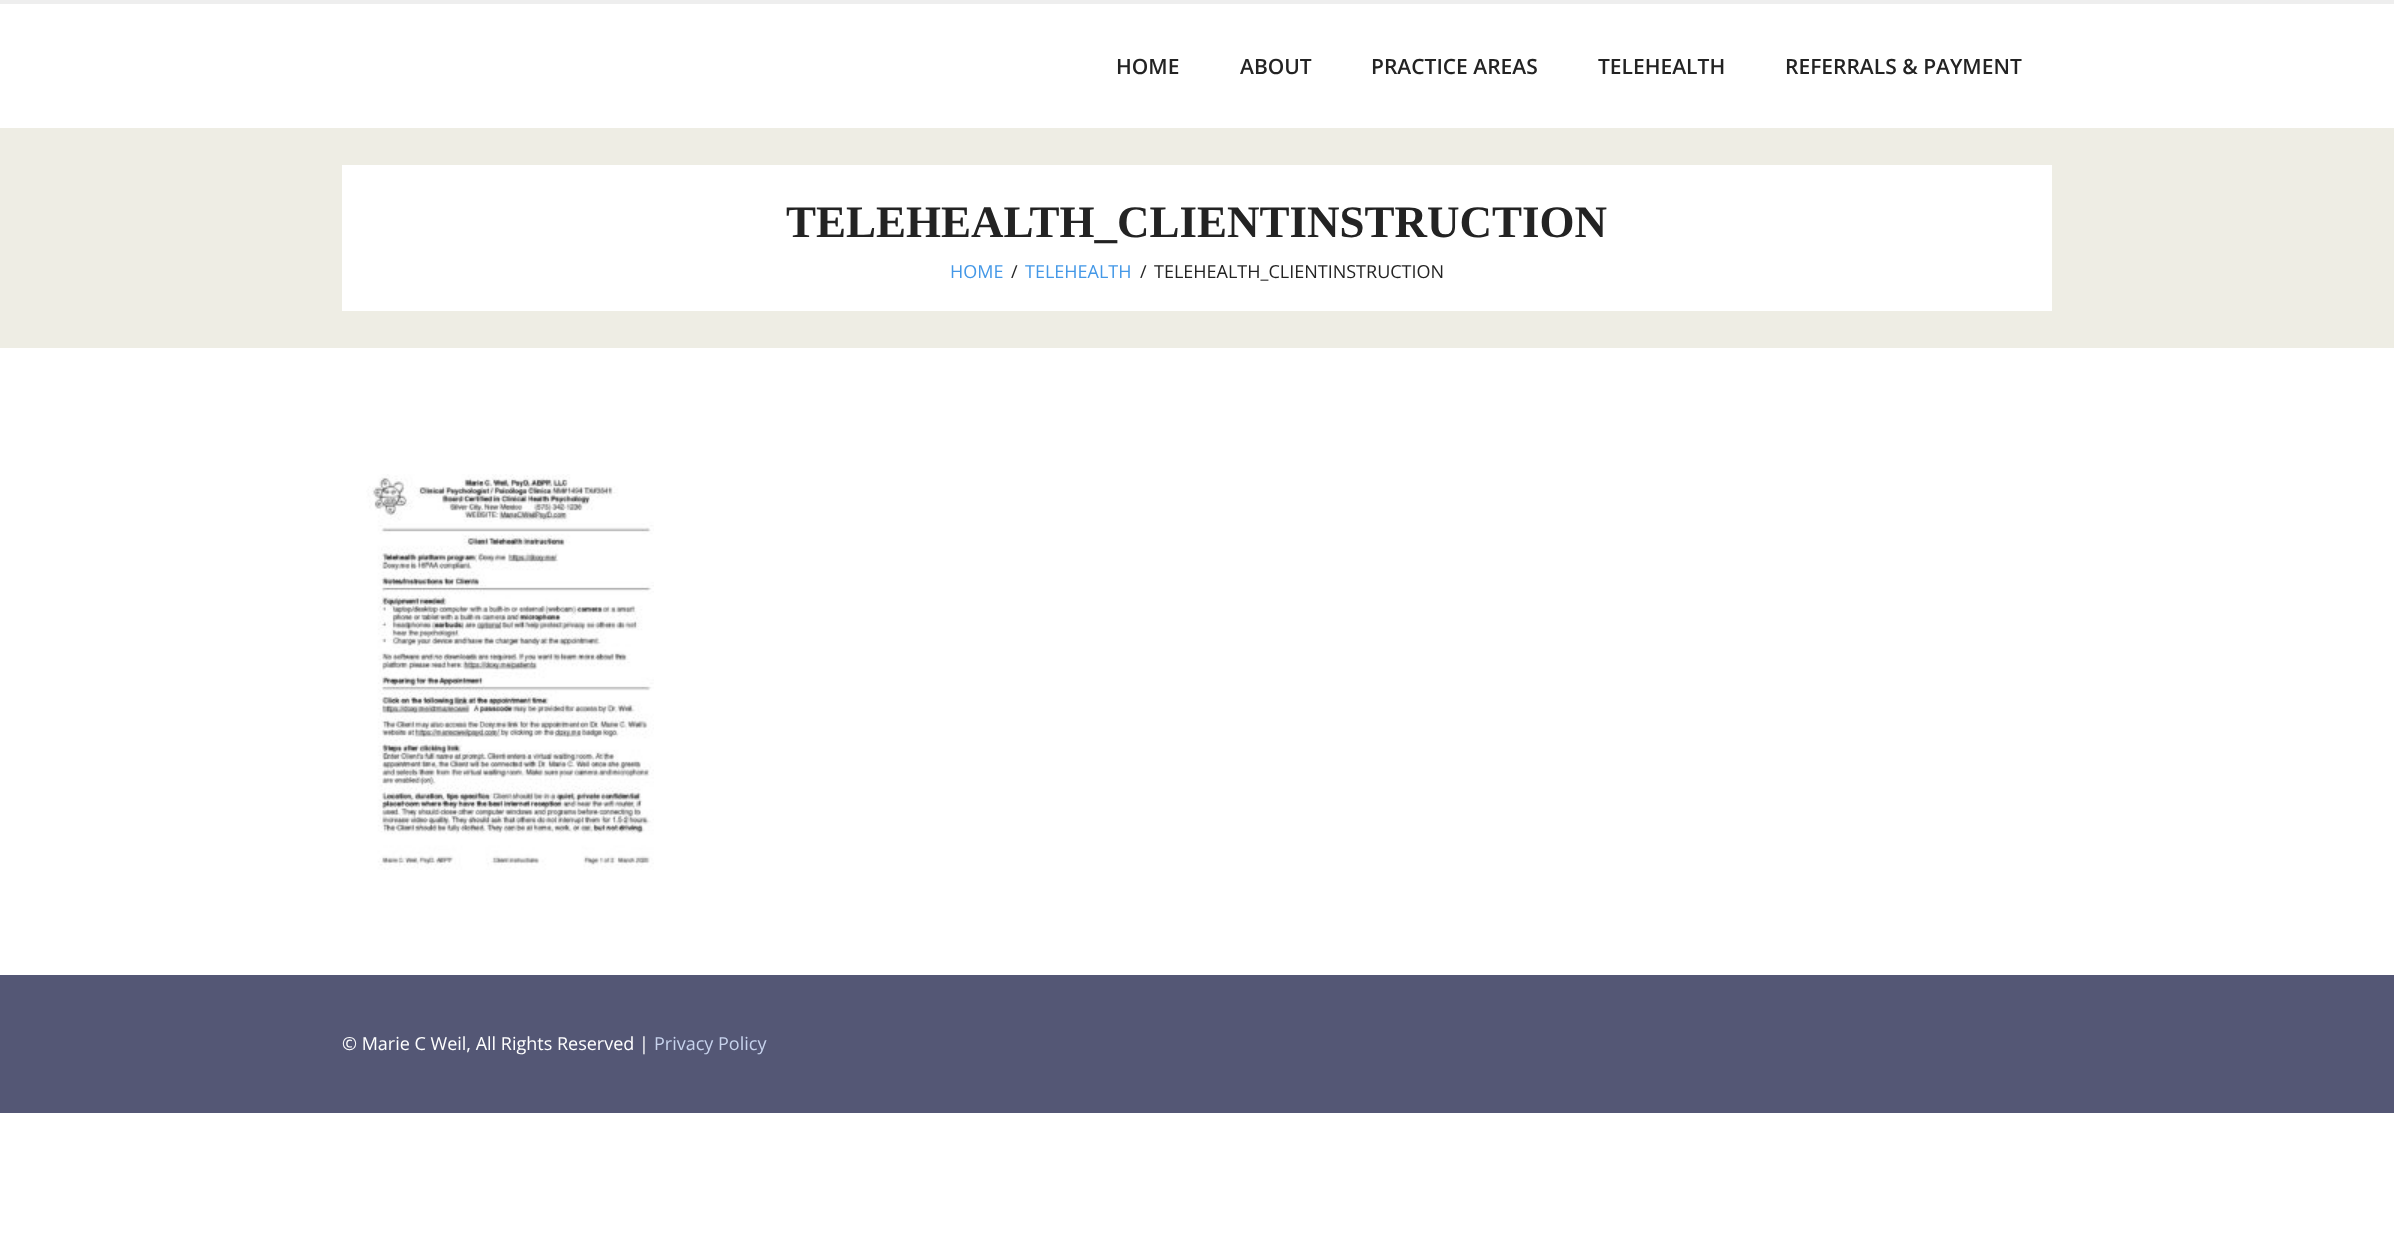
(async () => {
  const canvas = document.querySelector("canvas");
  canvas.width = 2394;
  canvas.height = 1235;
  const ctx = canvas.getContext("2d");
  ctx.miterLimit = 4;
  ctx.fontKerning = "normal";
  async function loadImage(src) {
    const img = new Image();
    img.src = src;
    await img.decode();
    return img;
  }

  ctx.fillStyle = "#ffffff";
  ctx.fillRect(0, 0, 2394, 1235);
  for (const [x, y, w, h, color] of [
    [0, 0, 2394, 4, "#eeeeee"],
    [0, 128, 2394, 220, "#eeede4"],
    [342, 165, 1710, 146, "#ffffff"],
  ]) {
    ctx.fillStyle = color;
    ctx.fillRect(x, y, w, h);
  }
  ctx.drawImage(await loadImage("img/1.png"), 366, 474, 288, 396);
  ctx.fillStyle = "#545775";
  ctx.fillRect(0, 975, 2394, 138);
  ctx.font = "600 21px Open Sans";
  ctx.fillStyle = "#232323";
  for (const [text, x, y] of [
    ["HOME", 1116, 74],
    ["ABOUT", 1240, 74],
    ["PRACTICE AREAS", 1371, 74],
    ["TELEHEALTH", 1598, 74],
    ["REFERRALS & PAYMENT", 1785, 74],
  ]) {
    ctx.fillText(text, x, y);
  }
  ctx.font = "bold 45px Liberation Serif";
  ctx.fillText("TELEHEALTH_CLIENTINSTRUCTION", 786, 237);
  ctx.font = "18px Open Sans";
  ctx.fillStyle = "#4498e7";
  ctx.fillText("HOME", 950, 278);
  ctx.fillStyle = "#232323";
  ctx.fillText("/", 1011, 278);
  ctx.fillStyle = "#4498e7";
  ctx.fillText("TELEHEALTH", 1025, 278);
  ctx.fillStyle = "#232323";
  ctx.fillText("/", 1140, 278);
  ctx.fillText("TELEHEALTH_CLIENTINSTRUCTION", 1154, 278);
  ctx.fillStyle = "#ffffff";
  ctx.fillText("© Marie C Weil, All Rights Reserved |", 342, 1050);
  ctx.fillStyle = "#c7d3ed";
  ctx.fillText("Privacy Policy", 654, 1050);
})();
